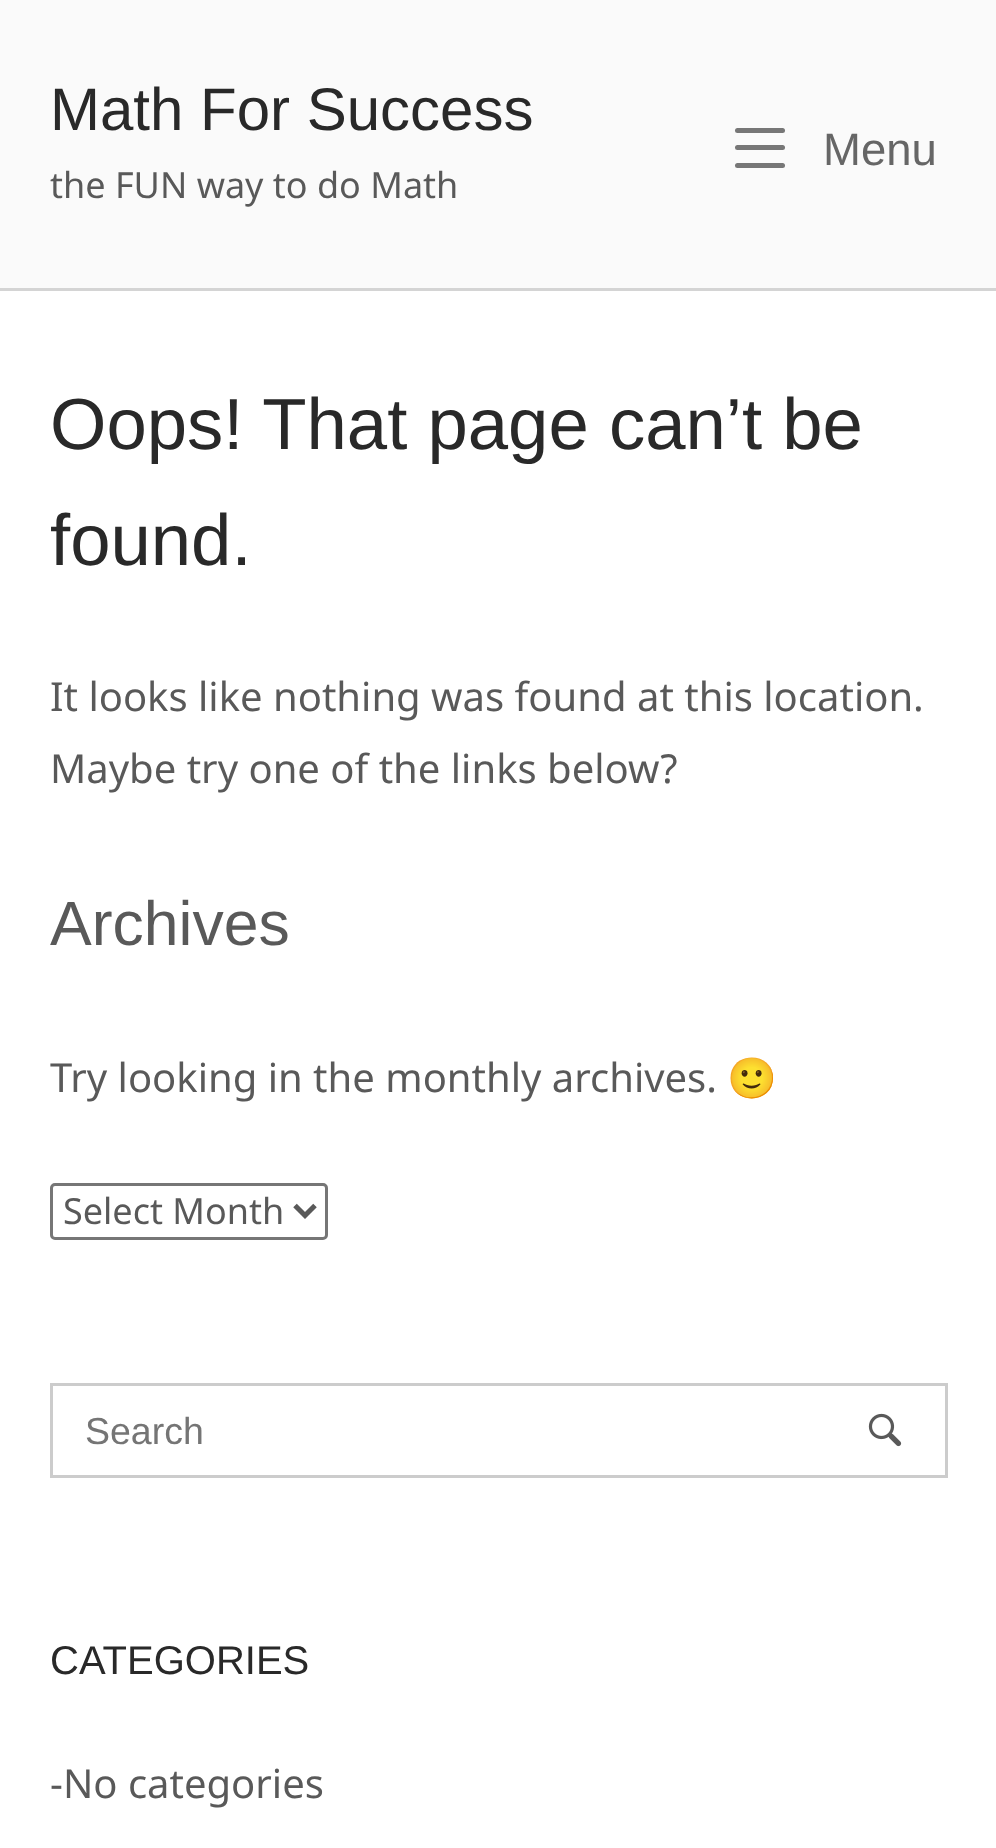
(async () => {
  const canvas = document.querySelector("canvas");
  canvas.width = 996;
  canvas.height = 1848;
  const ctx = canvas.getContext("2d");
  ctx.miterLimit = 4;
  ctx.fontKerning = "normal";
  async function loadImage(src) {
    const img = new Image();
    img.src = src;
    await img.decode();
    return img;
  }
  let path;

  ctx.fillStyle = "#ffffff";
  ctx.fillRect(0, 0, 996, 1848);
  ctx.fillStyle = "#fafafa";
  ctx.fillRect(0, 0, 996, 288);
  ctx.fillStyle = "#d4d4d4";
  ctx.fillRect(0, 288, 996, 3);
  ctx.fillStyle = "#777777";
  ctx.beginPath();
  ctx.roundRect(735, 128, 50, 5, 2.5);
  ctx.fill();
  ctx.beginPath();
  ctx.roundRect(735, 145, 50, 5, 2.5);
  ctx.fill();
  ctx.beginPath();
  ctx.roundRect(735, 163, 50, 5, 2.5);
  ctx.fill();
  ctx.beginPath();
  ctx.roundRect(51.5, 1184.5, 275, 54, 3.5);
  ctx.strokeStyle = "#767676";
  ctx.lineWidth = 3;
  ctx.stroke();
  path = new Path2D("M295 1205.5L305 1215.5L315 1205.5");
  ctx.strokeStyle = "#595959";
  ctx.lineWidth = 5;
  ctx.stroke(path);
  ctx.strokeStyle = "#cccccc";
  ctx.lineWidth = 3;
  ctx.strokeRect(51.5, 1384.5, 895, 92);
  ctx.drawImage(await loadImage("img/1.png"), 868, 1413, 34, 34);
  ctx.font = "60px Liberation Sans";
  ctx.fillStyle = "#292929";
  ctx.fillText("Math For Success", 50, 130);
  ctx.font = "36px Noto Sans";
  ctx.fillStyle = "#595959";
  ctx.fillText("the FUN way to do Math", 50, 198);
  ctx.font = "45.5px Liberation Sans";
  ctx.fillStyle = "#666666";
  ctx.fillText("Menu", 823, 165);
  ctx.font = "72.5px Liberation Sans";
  ctx.fillStyle = "#292929";
  ctx.fillText("Oops! That page can’t be", 50, 449);
  ctx.fillText("found.", 50, 565);
  ctx.font = "40px Noto Sans";
  ctx.fillStyle = "#595959";
  ctx.fillText("It looks like nothing was found at this location.", 50, 711);
  ctx.fillText("Maybe try one of the links below?", 50, 783);
  ctx.font = "62.5px Liberation Sans";
  ctx.fillText("Archives", 50, 945);
  ctx.font = "40px Noto Sans";
  ctx.fillText("Try looking in the monthly archives.", 50, 1092);
  ctx.font = "40px Noto Color Emoji";
  ctx.fillText("🙂", 727, 1092);
  ctx.font = "36px Noto Sans";
  ctx.fillText("Select Month", 63, 1224);
  ctx.font = "37.5px Liberation Sans";
  ctx.fillStyle = "#757575";
  ctx.fillText("Search", 85, 1444);
  ctx.font = "40px Liberation Sans";
  ctx.fillStyle = "#292929";
  ctx.fillText("CATEGORIES", 50, 1674);
  ctx.font = "40px Noto Sans";
  ctx.fillStyle = "#595959";
  ctx.fillText("-No categories", 50, 1798);
})();
